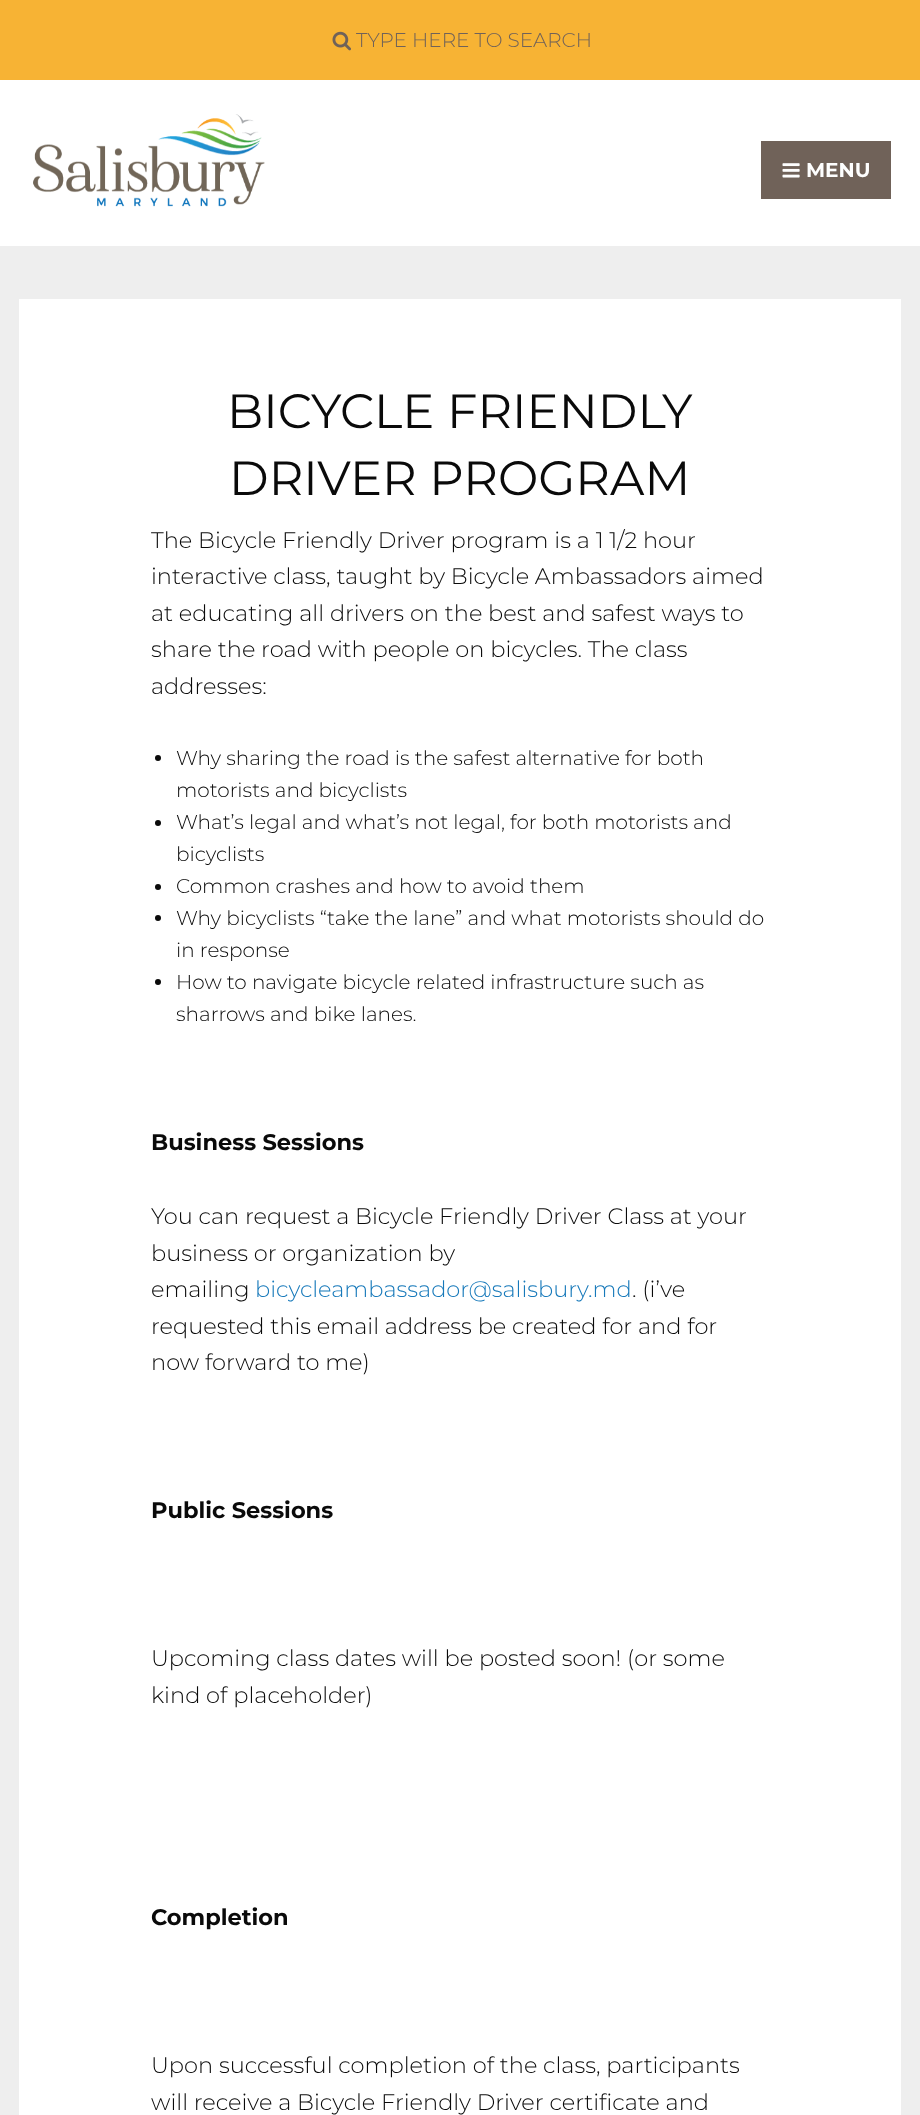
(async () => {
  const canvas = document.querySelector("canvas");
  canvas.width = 920;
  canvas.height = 2115;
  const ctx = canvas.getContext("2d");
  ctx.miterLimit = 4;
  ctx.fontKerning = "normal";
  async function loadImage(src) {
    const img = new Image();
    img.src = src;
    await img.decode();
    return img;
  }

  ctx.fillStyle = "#ffffff";
  ctx.fillRect(0, 0, 920, 2115);
  ctx.fillStyle = "#f7b334";
  ctx.fillRect(0, 0, 920, 80);
  ctx.drawImage(await loadImage("img/1.png"), 332, 31, 19, 20);
  ctx.drawImage(await loadImage("img/2.png"), 33, 114, 232, 93);
  ctx.fillStyle = "#706259";
  ctx.fillRect(761, 141, 130, 58);
  ctx.drawImage(await loadImage("img/3.png"), 782, 163, 18, 15);
  ctx.fillStyle = "#eeeeee";
  ctx.fillRect(0, 246, 920, 1869);
  ctx.fillStyle = "#ffffff";
  ctx.fillRect(19, 299, 882, 1816);
  ctx.fillStyle = "#0a0a0a";
  ctx.beginPath();
  ctx.arc(158, 758, 3, 0, Math.PI * 2);
  ctx.fill();
  ctx.beginPath();
  ctx.arc(158, 823, 3, 0, Math.PI * 2);
  ctx.fill();
  ctx.beginPath();
  ctx.arc(158, 887, 3, 0, Math.PI * 2);
  ctx.fill();
  ctx.beginPath();
  ctx.arc(158, 918, 3, 0, Math.PI * 2);
  ctx.fill();
  ctx.beginPath();
  ctx.arc(158, 982, 3, 0, Math.PI * 2);
  ctx.fill();
  ctx.font = "300 20px Montserrat";
  ctx.fillStyle = "#706259";
  ctx.fillText("TYPE HERE TO SEARCH", 356, 47);
  ctx.font = "bold 20px Montserrat";
  ctx.fillStyle = "#fefefe";
  ctx.fillText("MENU", 806, 177);
  ctx.font = "48px Montserrat";
  ctx.fillStyle = "#0a0a0a";
  ctx.fillText("BICYCLE FRIENDLY", 227, 428);
  ctx.fillText("DRIVER PROGRAM", 229, 495);
  ctx.font = "300 22.5px Montserrat";
  for (const [text, x, y] of [
    ["The Bicycle Friendly Driver program is a 1 1/2 hour", 151, 548],
    ["interactive class, taught by Bicycle Ambassadors aimed", 151, 584],
    ["at educating all drivers on the best and safest ways to", 151, 621],
    ["share the road with people on bicycles. The class", 151, 657],
    ["addresses:", 151, 694],
  ]) {
    ctx.fillText(text, x, y);
  }
  ctx.font = "300 20px Montserrat";
  for (const [text, x, y] of [
    ["Why sharing the road is the safest alternative for both", 176, 765],
    ["motorists and bicyclists", 176, 797],
    ["What’s legal and what’s not legal, for both motorists and", 176, 829],
    ["bicyclists", 176, 861],
    ["Common crashes and how to avoid them", 176, 893],
    ["Why bicyclists “take the lane” and what motorists should do", 176, 925],
    ["in response", 176, 957],
    ["How to navigate bicycle related infrastructure such as", 176, 989],
    ["sharrows and bike lanes.", 176, 1021],
  ]) {
    ctx.fillText(text, x, y);
  }
  ctx.font = "bold 22.5px Montserrat";
  ctx.fillText("Business Sessions", 151, 1150);
  ctx.font = "300 22.5px Montserrat";
  for (const [text, x, y] of [
    ["You can request a Bicycle Friendly Driver Class at your", 151, 1224],
    ["business or organization by", 151, 1261],
    ["emailing", 151, 1297],
  ]) {
    ctx.fillText(text, x, y);
  }
  ctx.fillStyle = "#1779ba";
  ctx.fillText("bicycleambassador@salisbury.md", 255, 1297);
  ctx.fillStyle = "#0a0a0a";
  for (const [text, x, y] of [
    [". (i’ve", 632, 1297],
    ["requested this email address be created for and for", 151, 1334],
    ["now forward to me)", 151, 1370],
  ]) {
    ctx.fillText(text, x, y);
  }
  ctx.font = "bold 22.5px Montserrat";
  ctx.fillText("Public Sessions", 151, 1518);
  ctx.font = "300 22.5px Montserrat";
  ctx.fillText("Upcoming class dates will be posted soon! (or some", 151, 1666);
  ctx.fillText("kind of placeholder)", 151, 1703);
  ctx.font = "bold 22.5px Montserrat";
  ctx.fillText("Completion", 151, 1925);
  ctx.font = "300 22.5px Montserrat";
  ctx.fillText("Upon successful completion of the class, participants", 151, 2073);
  ctx.fillText("will receive a Bicycle Friendly Driver certificate and", 151, 2110);
})();
